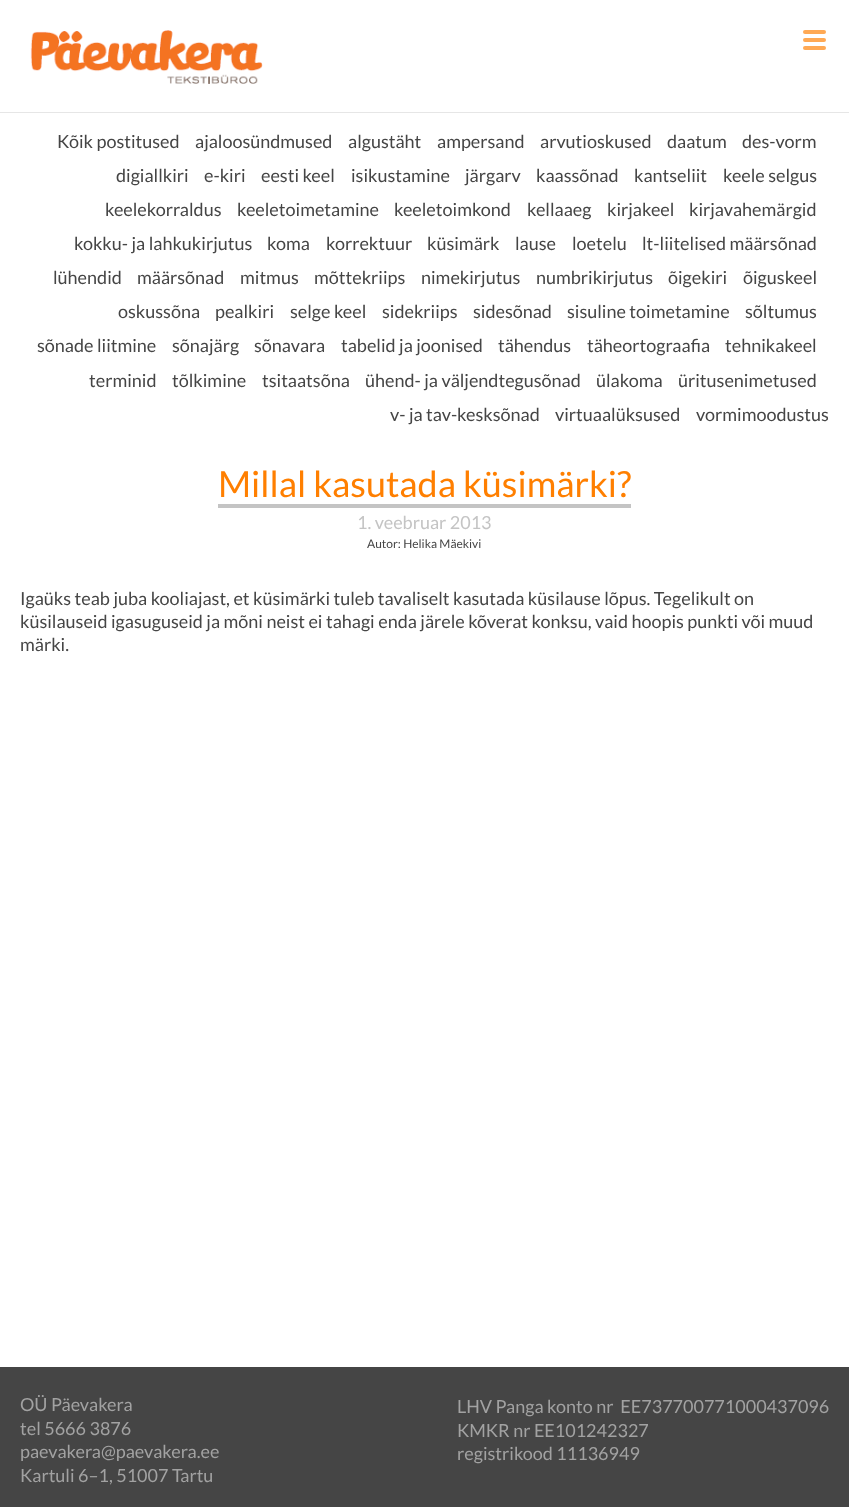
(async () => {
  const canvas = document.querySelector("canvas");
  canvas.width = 849;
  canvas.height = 1507;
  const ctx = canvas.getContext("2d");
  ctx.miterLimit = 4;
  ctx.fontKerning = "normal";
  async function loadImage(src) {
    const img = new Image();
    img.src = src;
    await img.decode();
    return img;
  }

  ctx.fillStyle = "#ffffff";
  ctx.fillRect(0, 0, 849, 1507);
  ctx.fillStyle = "#e6e6e6";
  ctx.fillRect(0, 112, 849, 1);
  ctx.drawImage(await loadImage("img/1.png"), 30, 30, 233, 54);
  ctx.fillStyle = "#ffa954";
  ctx.beginPath();
  ctx.roundRect(803, 30, 23, 4, 2);
  ctx.fill();
  ctx.beginPath();
  ctx.roundRect(803, 38, 23, 4, 2);
  ctx.fill();
  ctx.beginPath();
  ctx.roundRect(803, 46, 23, 4, 2);
  ctx.fill();
  ctx.fillStyle = "#c4c4c4";
  ctx.fillRect(218, 504, 413, 4);
  ctx.fillStyle = "#454545";
  ctx.fillRect(0, 1367, 849, 140);
  ctx.font = "18px Lato";
  for (const [text, x, y] of [
    ["Kõik postitused", 57, 148],
    ["ajaloosündmused", 195, 148],
    ["algustäht", 348, 148],
    ["ampersand", 437, 148],
    ["arvutioskused", 540, 148],
    ["daatum", 667, 148],
    ["des-vorm", 742, 148],
    ["digiallkiri", 116, 182],
    ["e-kiri", 204, 182],
    ["eesti keel", 261, 182],
    ["isikustamine", 351, 182],
    ["järgarv", 465, 182],
    ["kaassõnad", 536, 182],
    ["kantseliit", 634, 182],
    ["keele selgus", 723, 182],
    ["keelekorraldus", 105, 216],
    ["keeletoimetamine", 237, 216],
    ["keeletoimkond", 394, 216],
    ["kellaaeg", 527, 216],
    ["kirjakeel", 607, 216],
    ["kirjavahemärgid", 689, 216],
    ["kokku- ja lahkukirjutus", 74, 250],
    ["koma", 267, 250],
    ["korrektuur", 326, 250],
    ["küsimärk", 427, 250],
    ["lause", 515, 250],
    ["loetelu", 572, 250],
    ["lt-liitelised määrsõnad", 642, 250],
    ["lühendid", 53, 284],
    ["määrsõnad", 137, 284],
    ["mitmus", 240, 284],
    ["mõttekriips", 314, 284],
    ["nimekirjutus", 421, 284],
    ["numbrikirjutus", 536, 284],
    ["õigekiri", 668, 284],
    ["õiguskeel", 743, 284],
    ["oskussõna", 118, 318],
    ["pealkiri", 215, 318],
    ["selge keel", 290, 318],
    ["sidekriips", 382, 318],
    ["sidesõnad", 473, 318],
    ["sisuline toimetamine", 567, 318],
    ["sõltumus", 745, 318],
    ["sõnade liitmine", 37, 352],
    ["sõnajärg", 172, 352],
    ["sõnavara", 254, 352],
    ["tabelid ja joonised", 341, 352],
    ["tähendus", 498, 352],
    ["täheortograafia", 587, 352],
    ["tehnikakeel", 725, 352],
    ["terminid", 89, 387],
    ["tõlkimine", 172, 387],
    ["tsitaatsõna", 262, 387],
    ["ühend- ja väljendtegusõnad", 365, 387],
    ["ülakoma", 596, 387],
    ["üritusenimetused", 678, 387],
    ["v- ja tav-kesksõnad", 390, 421],
    ["virtuaalüksused", 555, 421],
    ["vormimoodustus", 696, 421],
  ]) {
    ctx.fillText(text, x, y);
  }
  ctx.font = "36px Lato";
  ctx.fillStyle = "#ff7f00";
  ctx.fillText("Millal kasutada küsimärki?", 218, 497);
  ctx.font = "18px Lato";
  ctx.fillStyle = "#c4c4c4";
  ctx.fillText("1. veebruar 2013", 357, 529);
  ctx.font = "12px Lato";
  ctx.fillStyle = "#454545";
  ctx.fillText("Autor: Helika Mäekivi", 367, 548);
  ctx.font = "18px Lato";
  for (const [text, x, y] of [
    ["Igaüks teab juba kooliajast, et küsimärki tuleb tavaliselt kasutada küsilause lõpus. Tegelikult on", 20, 605],
    ["küsilauseid igasuguseid ja mõni neist ei tahagi enda järele kõverat konksu, vaid hoopis punkti või muud", 20, 628],
    ["märki.", 20, 651],
  ]) {
    ctx.fillText(text, x, y);
  }
  ctx.fillStyle = "#a2a2a2";
  for (const [text, x, y] of [
    ["OÜ Päevakera", 20, 1411],
    ["tel 5666 3876", 20, 1435],
    ["paevakera@paevakera.ee", 20, 1458],
    ["Kartuli 6–1, 51007 Tartu", 20, 1482],
    ["LHV Panga konto nr  EE737700771000437096", 457, 1413],
    ["KMKR nr EE101242327", 457, 1437],
    ["registrikood 11136949", 457, 1460],
  ]) {
    ctx.fillText(text, x, y);
  }
})();
